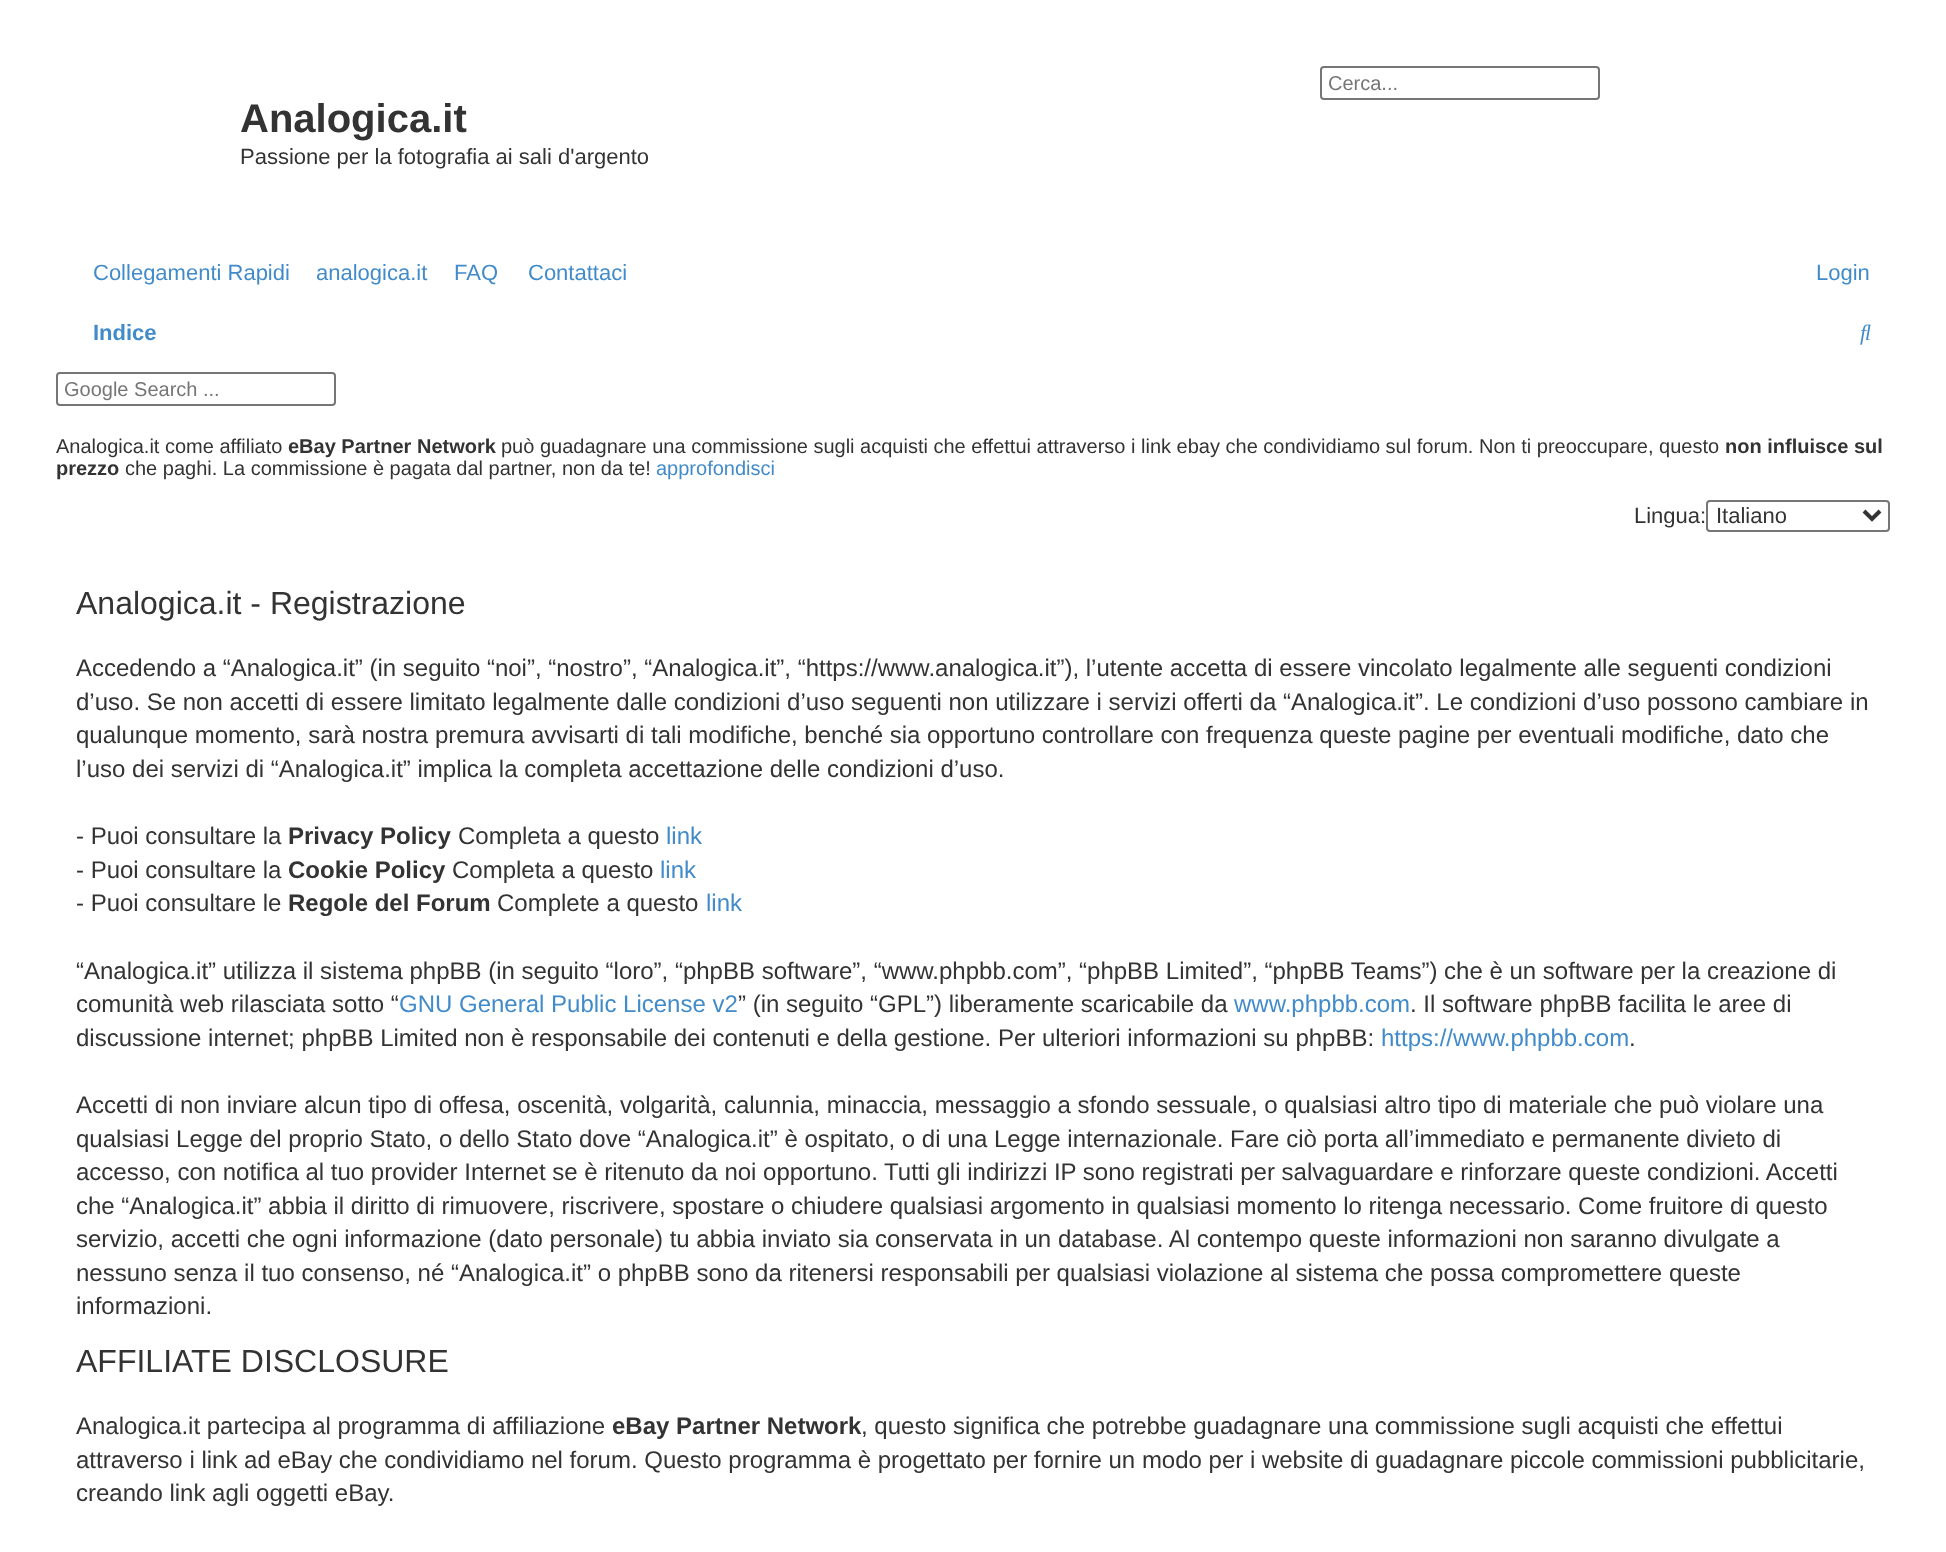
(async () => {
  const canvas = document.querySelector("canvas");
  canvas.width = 1946;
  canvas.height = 1552;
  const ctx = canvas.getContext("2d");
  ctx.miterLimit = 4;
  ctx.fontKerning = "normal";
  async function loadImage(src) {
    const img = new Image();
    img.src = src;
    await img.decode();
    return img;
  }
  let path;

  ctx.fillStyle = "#ffffff";
  ctx.fillRect(0, 0, 1946, 1552);
  ctx.beginPath();
  ctx.roundRect(1321, 67, 278, 32, 3);
  ctx.strokeStyle = "#767676";
  ctx.lineWidth = 2;
  ctx.stroke();
  ctx.drawImage(await loadImage("img/1.png"), 1860, 324, 11, 21);
  ctx.beginPath();
  ctx.roundRect(57, 373, 278, 32, 3);
  ctx.stroke();
  ctx.beginPath();
  ctx.roundRect(1707, 501, 182, 30, 3);
  ctx.stroke();
  path = new Path2D("M1864 511L1872 519L1880 511");
  ctx.strokeStyle = "#333333";
  ctx.lineWidth = 4;
  ctx.stroke(path);
  ctx.font = "20px Liberation Sans";
  ctx.fillStyle = "#757575";
  ctx.fillText("Cerca...", 1328, 90);
  ctx.font = "bold 40px Liberation Sans";
  ctx.fillStyle = "#333333";
  ctx.fillText("Analogica.it", 240, 132);
  ctx.font = "22px Liberation Sans";
  ctx.fillText("Passione per la fotografia ai sali d'argento", 240, 164);
  ctx.fillStyle = "#428bca";
  for (const [text, x, y] of [
    ["Collegamenti Rapidi", 93, 280],
    ["analogica.it", 316, 280],
    ["FAQ", 454, 280],
    ["Contattaci", 528, 280],
    ["Login", 1816, 280],
  ]) {
    ctx.fillText(text, x, y);
  }
  ctx.font = "bold 22px Liberation Sans";
  ctx.fillText("Indice", 93, 340);
  ctx.font = "20px Liberation Sans";
  ctx.fillStyle = "#757575";
  ctx.fillText("Google Search ...", 64, 396);
  ctx.fillStyle = "#333333";
  ctx.fillText("Analogica.it come affiliato", 56, 453);
  ctx.font = "bold 20px Liberation Sans";
  ctx.fillText("eBay Partner Network", 288, 453);
  ctx.font = "20px Liberation Sans";
  ctx.fillText("può guadagnare una commissione sugli acquisti che effettui attraverso i link ebay che condividiamo sul forum. Non ti preoccupare, questo", 501, 453);
  ctx.font = "bold 20px Liberation Sans";
  ctx.fillText("non influisce sul", 1725, 453);
  ctx.fillText("prezzo", 56, 475);
  ctx.font = "20px Liberation Sans";
  ctx.fillText("che paghi. La commissione è pagata dal partner, non da te!", 125, 475);
  ctx.fillStyle = "#428bca";
  ctx.fillText("approfondisci", 656, 475);
  ctx.font = "22px Liberation Sans";
  ctx.fillStyle = "#333333";
  ctx.fillText("Lingua:", 1634, 523);
  ctx.fillText("Italiano", 1716, 523);
  ctx.font = "32px Liberation Sans";
  ctx.fillText("Analogica.it - Registrazione", 76, 614);
  ctx.font = "24px Liberation Sans";
  for (const [text, x, y] of [
    ["Accedendo a “Analogica.it” (in seguito “noi”, “nostro”, “Analogica.it”, “https://www.analogica.it”), l’utente accetta di essere vincolato legalmente alle seguenti condizioni", 76, 676],
    ["d’uso. Se non accetti di essere limitato legalmente dalle condizioni d’uso seguenti non utilizzare i servizi offerti da “Analogica.it”. Le condizioni d’uso possono cambiare in", 76, 710],
    ["qualunque momento, sarà nostra premura avvisarti di tali modifiche, benché sia opportuno controllare con frequenza queste pagine per eventuali modifiche, dato che", 76, 743],
    ["l’uso dei servizi di “Analogica.it” implica la completa accettazione delle condizioni d’uso.", 76, 777],
    ["- Puoi consultare la", 76, 844],
  ]) {
    ctx.fillText(text, x, y);
  }
  ctx.font = "bold 24px Liberation Sans";
  ctx.fillText("Privacy Policy", 288, 844);
  ctx.font = "24px Liberation Sans";
  ctx.fillText("Completa a questo", 458, 844);
  ctx.fillStyle = "#428bca";
  ctx.fillText("link", 666, 844);
  ctx.fillStyle = "#333333";
  ctx.fillText("- Puoi consultare la", 76, 878);
  ctx.font = "bold 24px Liberation Sans";
  ctx.fillText("Cookie Policy", 288, 878);
  ctx.font = "24px Liberation Sans";
  ctx.fillText("Completa a questo", 452, 878);
  ctx.fillStyle = "#428bca";
  ctx.fillText("link", 660, 878);
  ctx.fillStyle = "#333333";
  ctx.fillText("- Puoi consultare le", 76, 911);
  ctx.font = "bold 24px Liberation Sans";
  ctx.fillText("Regole del Forum", 288, 911);
  ctx.font = "24px Liberation Sans";
  ctx.fillText("Complete a questo", 497, 911);
  ctx.fillStyle = "#428bca";
  ctx.fillText("link", 706, 911);
  ctx.fillStyle = "#333333";
  ctx.fillText("“Analogica.it” utilizza il sistema phpBB (in seguito “loro”, “phpBB software”, “www.phpbb.com”, “phpBB Limited”, “phpBB Teams”) che è un software per la creazione di", 76, 979);
  ctx.fillText("comunità web rilasciata sotto “", 76, 1012);
  ctx.fillStyle = "#428bca";
  ctx.fillText("GNU General Public License v2", 399, 1012);
  ctx.fillStyle = "#333333";
  ctx.fillText("” (in seguito “GPL”) liberamente scaricabile da", 738, 1012);
  ctx.fillStyle = "#428bca";
  ctx.fillText("www.phpbb.com", 1234, 1012);
  ctx.fillStyle = "#333333";
  ctx.fillText(". Il software phpBB facilita le aree di", 1410, 1012);
  ctx.fillText("discussione internet; phpBB Limited non è responsabile dei contenuti e della gestione. Per ulteriori informazioni su phpBB:", 76, 1046);
  ctx.fillStyle = "#428bca";
  ctx.fillText("https://www.phpbb.com", 1381, 1046);
  ctx.fillStyle = "#333333";
  for (const [text, x, y] of [
    [".", 1629, 1046],
    ["Accetti di non inviare alcun tipo di offesa, oscenità, volgarità, calunnia, minaccia, messaggio a sfondo sessuale, o qualsiasi altro tipo di materiale che può violare una", 76, 1113],
    ["qualsiasi Legge del proprio Stato, o dello Stato dove “Analogica.it” è ospitato, o di una Legge internazionale. Fare ciò porta all’immediato e permanente divieto di", 76, 1147],
    ["accesso, con notifica al tuo provider Internet se è ritenuto da noi opportuno. Tutti gli indirizzi IP sono registrati per salvaguardare e rinforzare queste condizioni. Accetti", 76, 1180],
    ["che “Analogica.it” abbia il diritto di rimuovere, riscrivere, spostare o chiudere qualsiasi argomento in qualsiasi momento lo ritenga necessario. Come fruitore di questo", 76, 1214],
    ["servizio, accetti che ogni informazione (dato personale) tu abbia inviato sia conservata in un database. Al contempo queste informazioni non saranno divulgate a", 76, 1247],
    ["nessuno senza il tuo consenso, né “Analogica.it” o phpBB sono da ritenersi responsabili per qualsiasi violazione al sistema che possa compromettere queste", 76, 1281],
    ["informazioni.", 76, 1314],
  ]) {
    ctx.fillText(text, x, y);
  }
  ctx.font = "32px Liberation Sans";
  ctx.fillText("AFFILIATE DISCLOSURE", 76, 1372);
  ctx.font = "24px Liberation Sans";
  ctx.fillText("Analogica.it partecipa al programma di affiliazione", 76, 1434);
  ctx.font = "bold 24px Liberation Sans";
  ctx.fillText("eBay Partner Network", 612, 1434);
  ctx.font = "24px Liberation Sans";
  for (const [text, x, y] of [
    [", questo significa che potrebbe guadagnare una commissione sugli acquisti che effettui", 861, 1434],
    ["attraverso i link ad eBay che condividiamo nel forum. Questo programma è progettato per fornire un modo per i website di guadagnare piccole commissioni pubblicitarie,", 76, 1468],
    ["creando link agli oggetti eBay.", 76, 1501],
  ]) {
    ctx.fillText(text, x, y);
  }
})();
